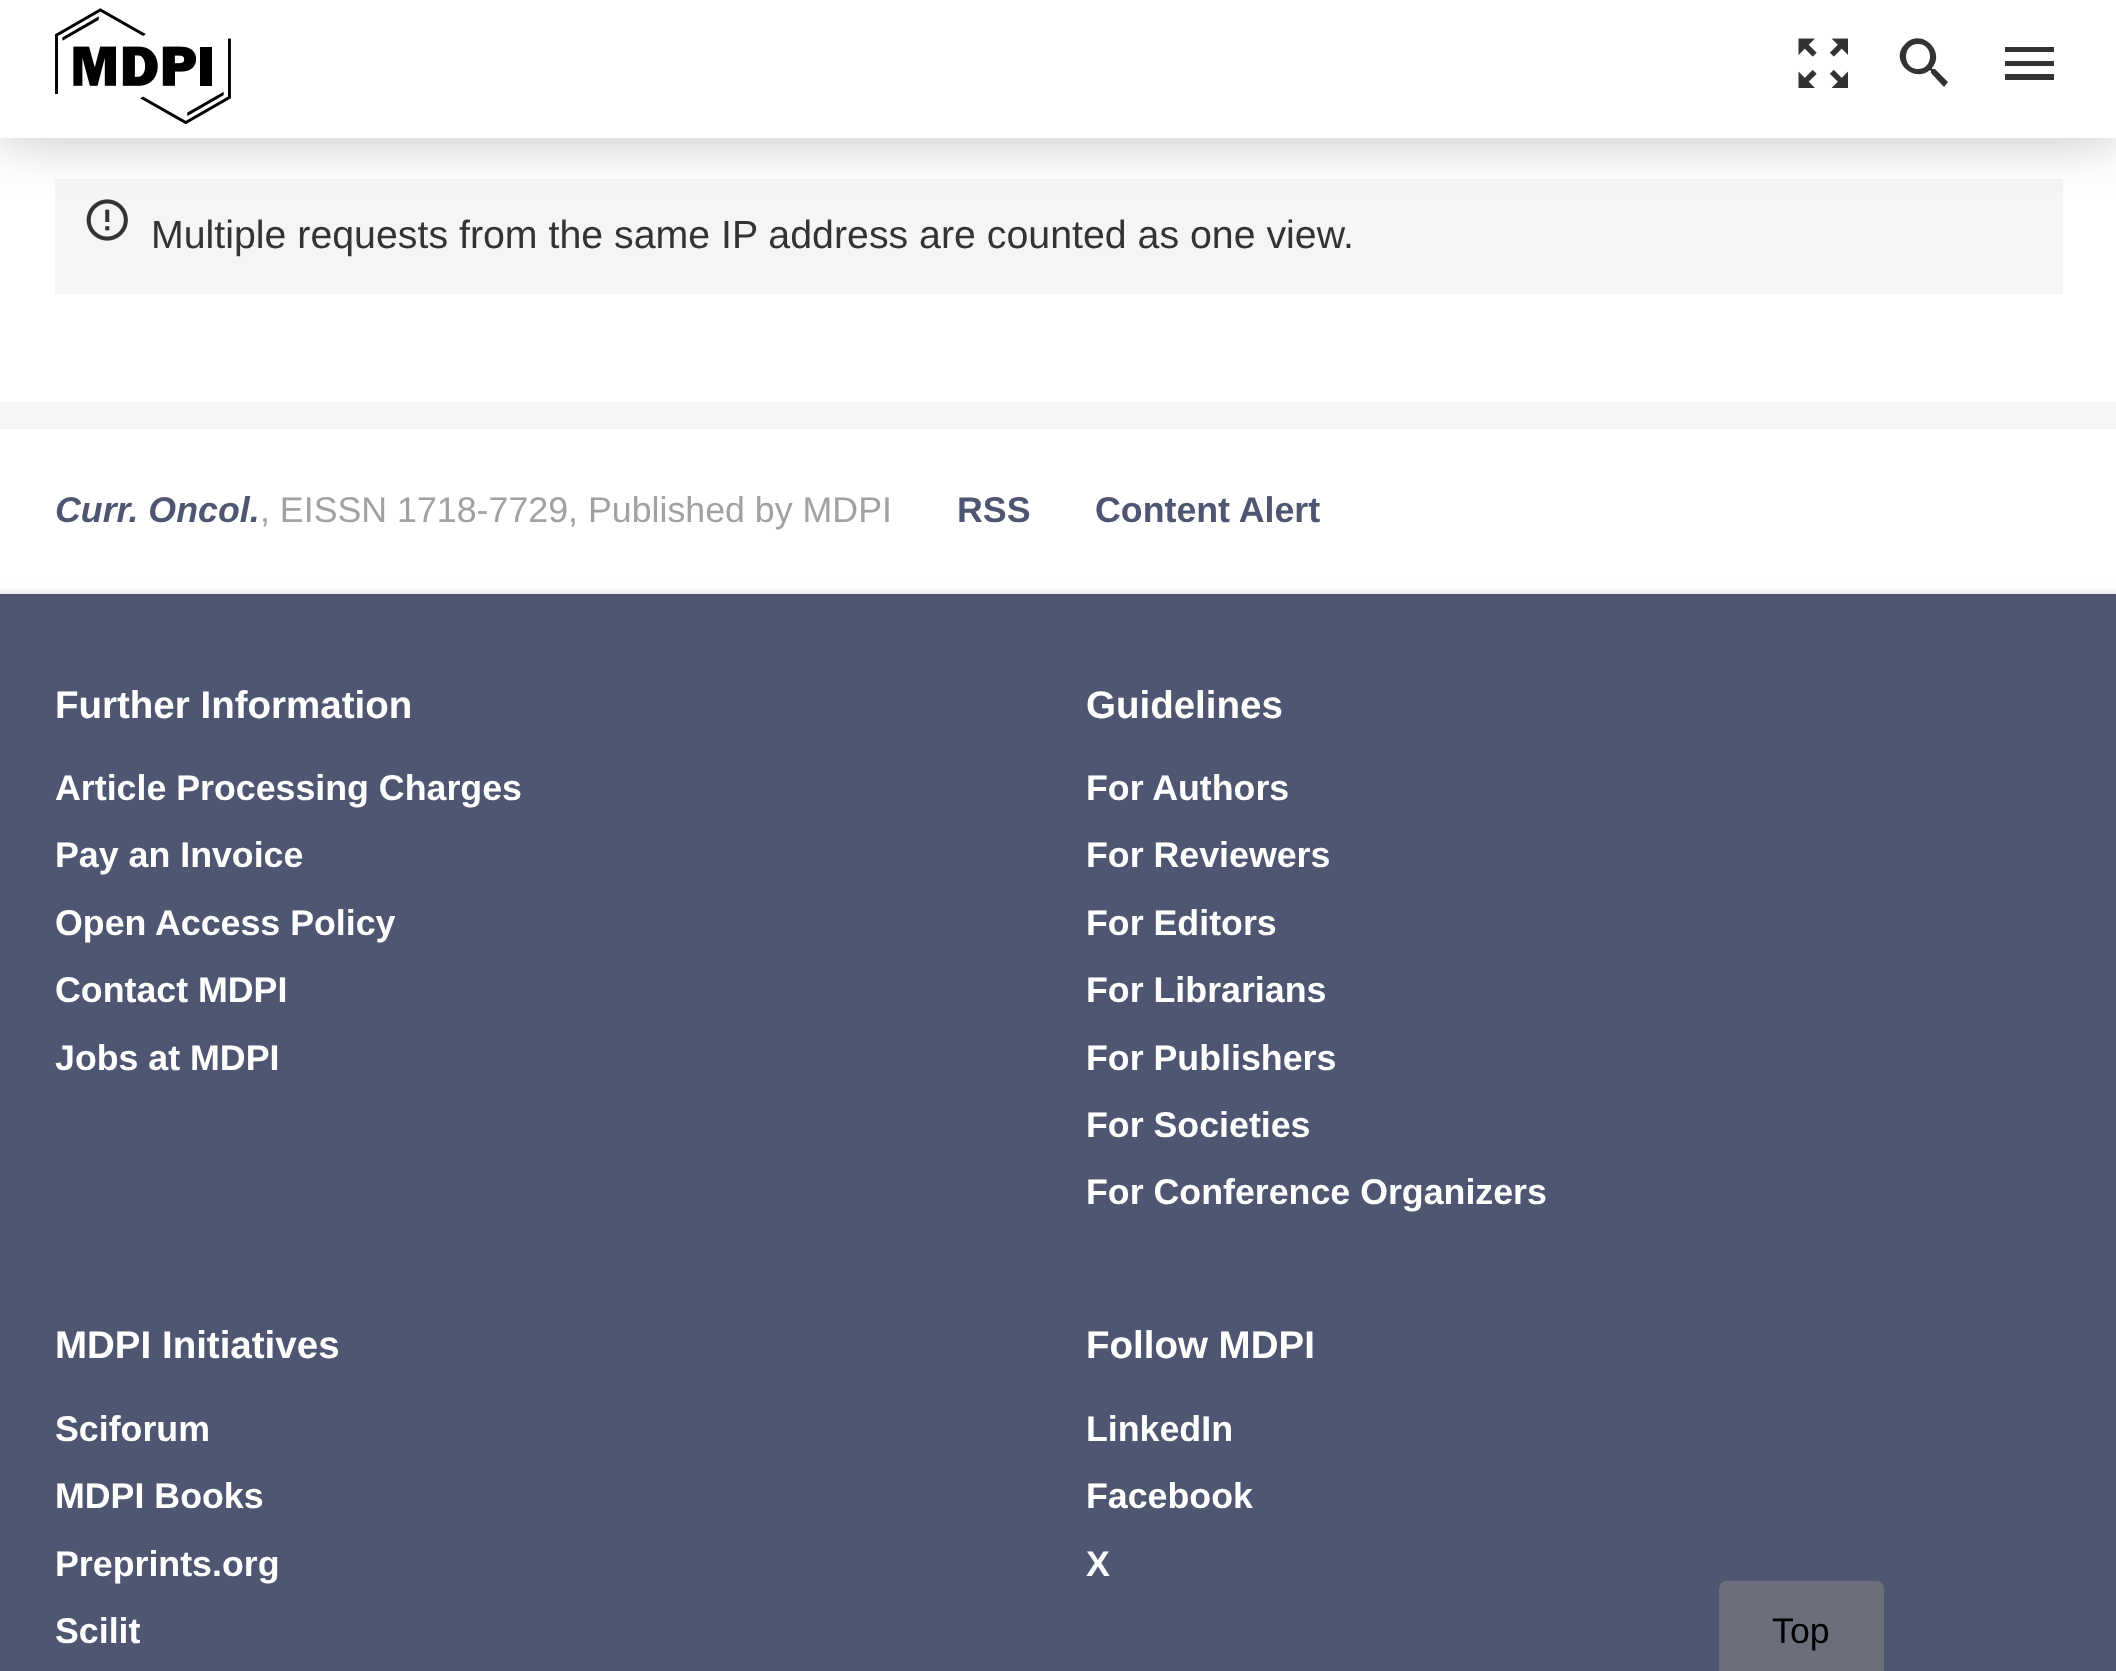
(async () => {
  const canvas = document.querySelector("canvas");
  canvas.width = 2116;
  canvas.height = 1671;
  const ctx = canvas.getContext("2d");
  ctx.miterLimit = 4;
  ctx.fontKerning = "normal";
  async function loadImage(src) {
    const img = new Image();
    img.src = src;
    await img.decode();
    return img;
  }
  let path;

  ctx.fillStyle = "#f5f5f5";
  ctx.fillRect(0, 0, 2116, 1671);
  ctx.fillStyle = "#ffffff";
  ctx.fillRect(0, 138, 2116, 264);
  ctx.fillStyle = "#f5f5f5";
  ctx.fillRect(55, 179, 2008, 115);
  ctx.drawImage(await loadImage("img/3.png"), 86, 199, 42, 42);
  ctx.fillStyle = "rgba(0, 0, 0, 0.25)";
  ctx.filter = "blur(27.5px)";
  ctx.beginPath();
  ctx.rect(0, 0, 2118, 138);
  ctx.fill();
  ctx.filter = "none";
  ctx.fillStyle = "#ffffff";
  ctx.fillRect(0, 0, 2116, 138);
  ctx.drawImage(await loadImage("img/1.png"), 55, 8, 176, 116);
  ctx.drawImage(await loadImage("img/2.png"), 1798, 38, 50, 50);
  ctx.fillStyle = "#333333";
  path = new Path2D("M1935 69H1932V68C1946 52 1922 27 1905 44C1889 60 1913 84 1930 70L1931 71V73L1944 87L1948 82ZM1918 69C1902 69 1902 44 1918 44C1934 44 1934 69 1918 69Z");
  ctx.fill(path);
  path = new Path2D("M2005 80H2054V74H2005ZM2005 66H2054V61H2005ZM2005 47V52H2054V47Z");
  ctx.fill(path);
  ctx.fillStyle = "#ffffff";
  ctx.fillRect(0, 429, 2116, 165);
  ctx.fillStyle = "rgba(204, 204, 204, 0.5)";
  ctx.filter = "blur(3px)";
  ctx.beginPath();
  ctx.rect(-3, 591, 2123, 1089);
  ctx.fill();
  ctx.filter = "none";
  ctx.fillStyle = "#4f5671";
  ctx.fillRect(0, 594, 2116, 1077);
  ctx.fillStyle = "#6b6f7c";
  path = new Path2D("M1727 1581H1876C1880.5 1581 1884 1584.5 1884 1589V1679H1719V1589C1719 1584.5 1722.5 1581 1727 1581Z");
  ctx.fill(path);
  ctx.font = "39.3px Liberation Sans";
  ctx.fillStyle = "#333333";
  ctx.fillText("Multiple requests from the same IP address are counted as one view.", 151, 248);
  ctx.font = "italic bold 35.75px Liberation Sans";
  ctx.fillStyle = "#4f5671";
  ctx.fillText("Curr. Oncol.", 55, 522);
  ctx.font = "35.75px Liberation Sans";
  ctx.fillStyle = "#a1a1a1";
  ctx.fillText(", EISSN 1718-7729, Published by MDPI", 260, 522);
  ctx.font = "bold 35.75px Liberation Sans";
  ctx.fillStyle = "#4f5671";
  ctx.fillText("RSS", 957, 522);
  ctx.fillText("Content Alert", 1095, 522);
  ctx.font = "bold 38.5px Liberation Sans";
  ctx.fillStyle = "#ffffff";
  ctx.fillText("Further Information", 55, 718);
  ctx.font = "bold 35.75px Liberation Sans";
  for (const [text, x, y] of [
    ["Article Processing Charges", 55, 800],
    ["Pay an Invoice", 55, 867],
    ["Open Access Policy", 55, 935],
    ["Contact MDPI", 55, 1002],
    ["Jobs at MDPI", 55, 1070],
  ]) {
    ctx.fillText(text, x, y);
  }
  ctx.font = "bold 38.5px Liberation Sans";
  ctx.fillText("Guidelines", 1086, 718);
  ctx.font = "bold 35.75px Liberation Sans";
  for (const [text, x, y] of [
    ["For Authors", 1086, 800],
    ["For Reviewers", 1086, 867],
    ["For Editors", 1086, 935],
    ["For Librarians", 1086, 1002],
    ["For Publishers", 1086, 1070],
    ["For Societies", 1086, 1137],
    ["For Conference Organizers", 1086, 1204],
  ]) {
    ctx.fillText(text, x, y);
  }
  ctx.font = "bold 38.5px Liberation Sans";
  ctx.fillText("MDPI Initiatives", 55, 1358);
  ctx.font = "bold 35.75px Liberation Sans";
  for (const [text, x, y] of [
    ["Sciforum", 55, 1441],
    ["MDPI Books", 55, 1508],
    ["Preprints.org", 55, 1576],
    ["Scilit", 55, 1643],
  ]) {
    ctx.fillText(text, x, y);
  }
  ctx.font = "bold 38.5px Liberation Sans";
  ctx.fillText("Follow MDPI", 1086, 1358);
  ctx.font = "bold 35.75px Liberation Sans";
  for (const [text, x, y] of [
    ["LinkedIn", 1086, 1441],
    ["Facebook", 1086, 1508],
    ["X", 1086, 1576],
  ]) {
    ctx.fillText(text, x, y);
  }
  ctx.font = "35.75px Liberation Sans";
  ctx.fillStyle = "#000000";
  ctx.fillText("Top", 1772, 1643);
})();
